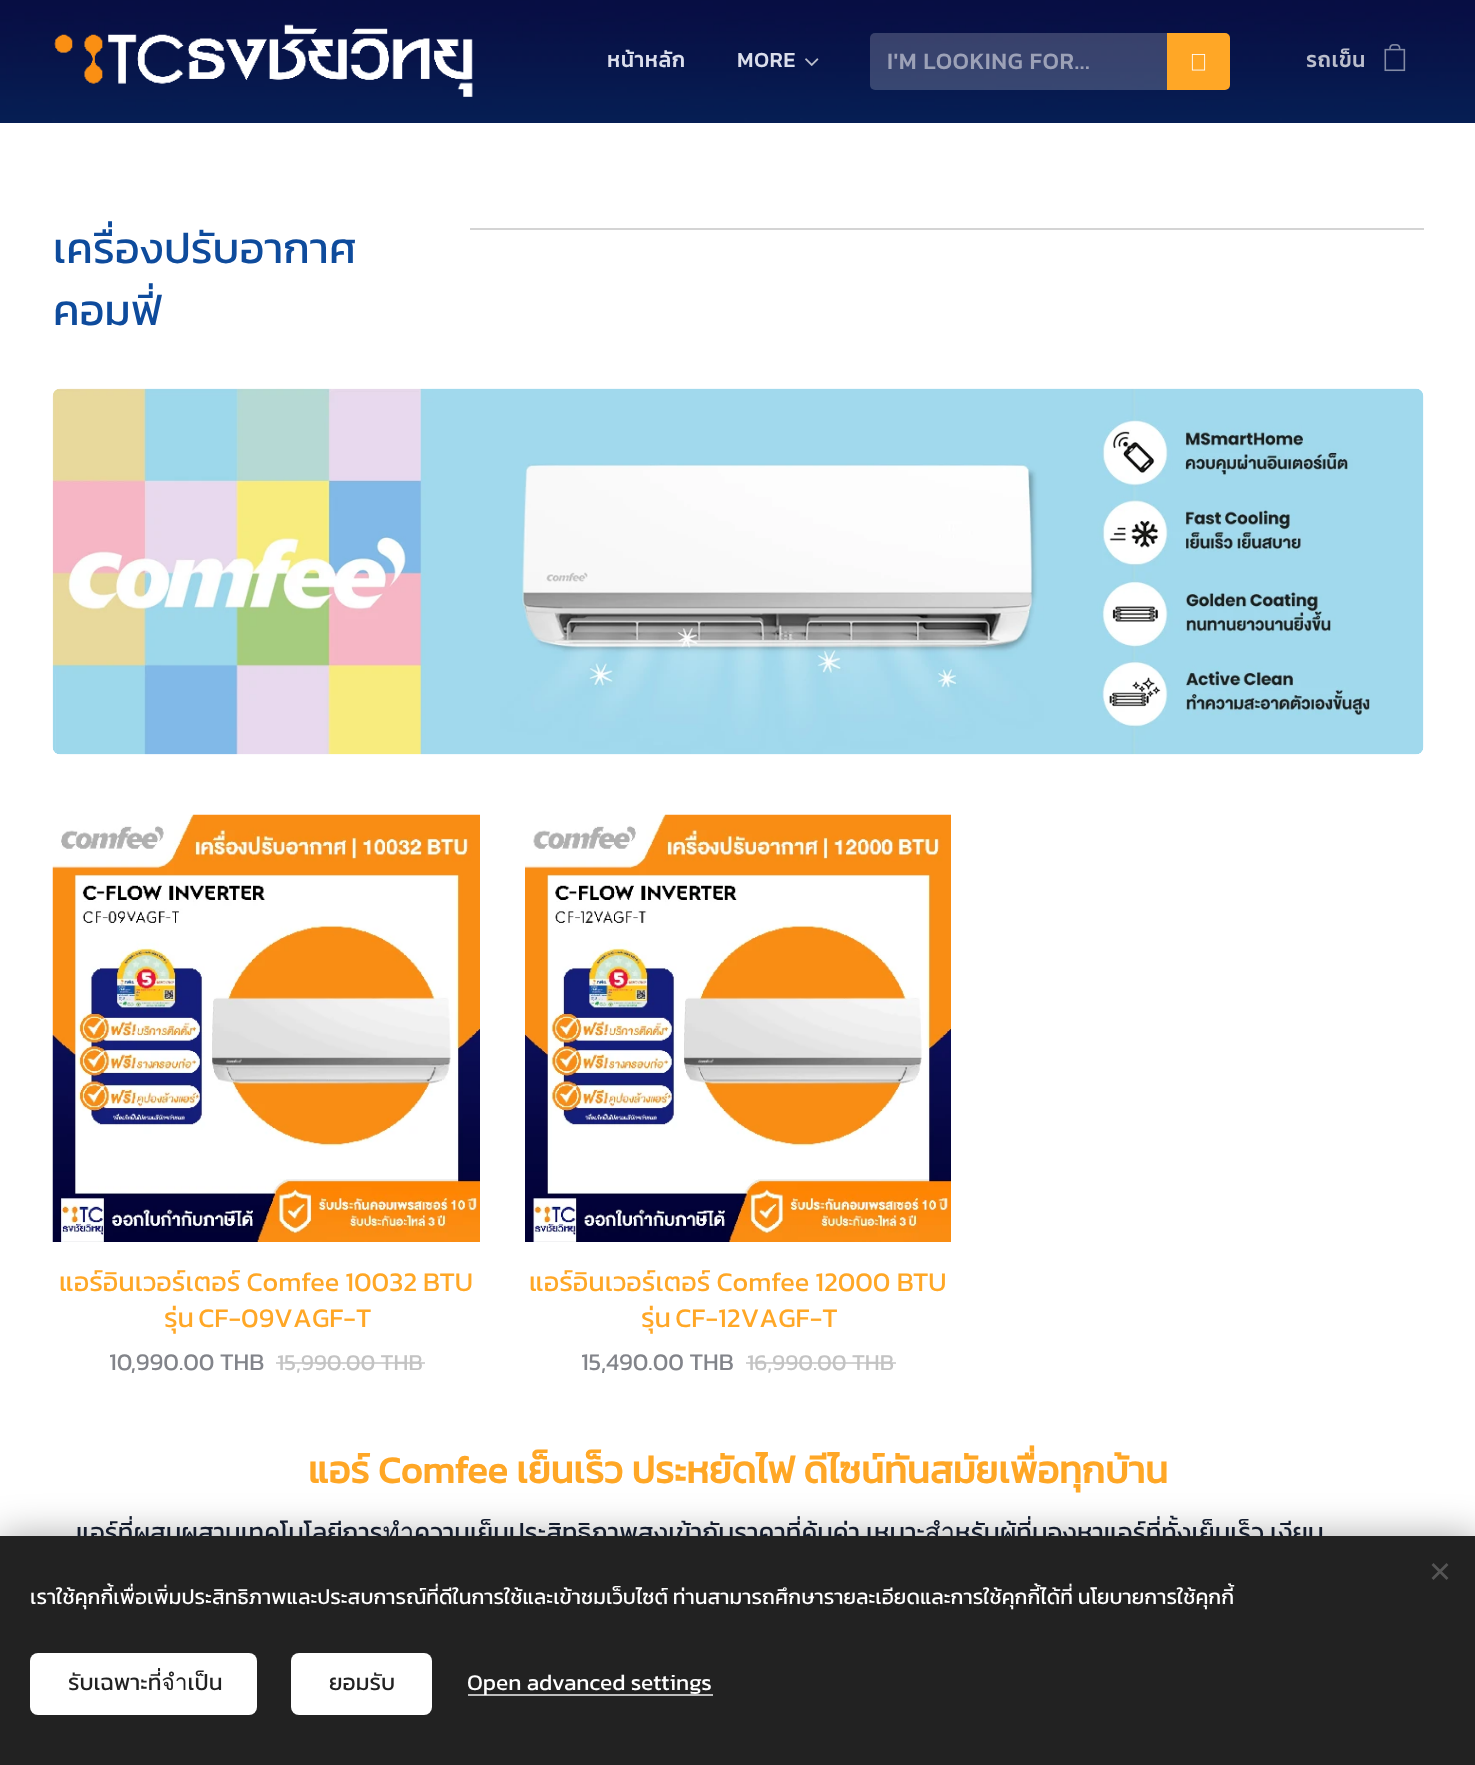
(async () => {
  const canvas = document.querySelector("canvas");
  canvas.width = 1475;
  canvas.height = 1765;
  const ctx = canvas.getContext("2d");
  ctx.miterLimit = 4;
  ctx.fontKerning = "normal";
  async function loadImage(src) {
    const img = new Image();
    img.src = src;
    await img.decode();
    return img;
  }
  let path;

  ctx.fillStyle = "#ffffff";
  ctx.fillRect(0, 0, 1475, 1765);
  ctx.drawImage(await loadImage("img/1.png"), 0, 0, 1475, 123);
  ctx.drawImage(await loadImage("img/2.png"), 54, 24, 419, 73);
  ctx.drawImage(await loadImage("img/3.png"), 805, 58, 14, 8);
  ctx.fillStyle = "rgba(255, 255, 255, 0.2)";
  ctx.beginPath();
  ctx.roundRect(870, 33, 297, 57, [5, 0, 0, 5]);
  ctx.fill();
  ctx.fillStyle = "#ffa726";
  ctx.beginPath();
  ctx.roundRect(1167, 33, 63, 57, [0, 5, 5, 0]);
  ctx.fill();
  ctx.drawImage(await loadImage("img/4.png"), 1191, 54, 15, 17);
  ctx.drawImage(await loadImage("img/5.png"), 1384, 44, 22, 28);
  ctx.fillStyle = "#d4d4d4";
  ctx.fillRect(470, 228, 954, 2);
  ctx.drawImage(await loadImage("img/6.png"), 52, 388, 1372, 367);
  ctx.drawImage(await loadImage("img/7.png"), 52, 814, 428, 428);
  ctx.drawImage(await loadImage("img/8.png"), 525, 814, 426, 428);
  ctx.fillStyle = "rgba(0, 0, 0, 0.33)";
  ctx.filter = "blur(19px)";
  ctx.beginPath();
  ctx.rect(0, 1536, 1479, 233);
  ctx.fill();
  ctx.filter = "none";
  ctx.letterSpacing = "1px";
  ctx.font = "bold 21px Kanit";
  ctx.fillStyle = "#dbdeec";
  ctx.fillText("หน้าหลัก", 607, 67);
  ctx.fillText("MORE", 737, 67);
  ctx.letterSpacing = "1.1px";
  ctx.font = "bold 22.75px Kanit";
  ctx.fillStyle = "#9ca1b7";
  ctx.fillText("I'M LOOKING FOR...", 887, 69);
  ctx.letterSpacing = "1px";
  ctx.font = "bold 21px Kanit";
  ctx.fillStyle = "#bbbecc";
  ctx.fillText("รถเข็น", 1306, 67);
  ctx.letterSpacing = "0px";
  ctx.font = "43.25px Kanit";
  ctx.fillStyle = "#0e4b9c";
  ctx.fillText("เครื่องปรับอากาศ", 53, 263);
  ctx.fillText("คอมฟี่", 53, 325);
  ctx.font = "27px Kanit";
  ctx.fillStyle = "#ffa726";
  ctx.fillText("แอร์อินเวอร์เตอร์ Comfee 10032 BTU", 59, 1291);
  ctx.wordSpacing = "-2px";
  ctx.fillText("รุ่น CF-09VAGF-T", 164, 1327);
  ctx.wordSpacing = "0px";
  ctx.font = "24px Kanit";
  ctx.fillStyle = "#82848a";
  ctx.fillText("10,990.00 THB", 109, 1370);
  ctx.font = "22.75px Kanit";
  ctx.fillStyle = "#c3c3c3";
  ctx.fillText("15,990.00 THB", 277, 1370);
  ctx.fillStyle = "rgba(195, 195, 195, 0.75)";
  ctx.fillRect(276, 1362, 149, 2);
  ctx.font = "27px Kanit";
  ctx.fillStyle = "#ffa726";
  ctx.fillText("แอร์อินเวอร์เตอร์ Comfee 12000 BTU", 529, 1291);
  ctx.wordSpacing = "-2px";
  ctx.fillText("รุ่น CF-12VAGF-T", 641, 1327);
  ctx.wordSpacing = "0px";
  ctx.font = "24px Kanit";
  ctx.fillStyle = "#82848a";
  ctx.fillText("15,490.00 THB", 581, 1370);
  ctx.font = "22.75px Kanit";
  ctx.fillStyle = "#c3c3c3";
  ctx.fillText("16,990.00 THB", 747, 1370);
  ctx.fillStyle = "rgba(195, 195, 195, 0.75)";
  ctx.fillRect(746, 1362, 150, 2);
  ctx.font = "bold 37.8px Kanit";
  ctx.fillStyle = "#ffa726";
  ctx.fillText("แอร์ Comfee เย็นเร็ว ประหยัดไฟ ดีไซน์ทันสมัยเพื่อทุกบ้าน", 308, 1483);
  ctx.font = "25.8px Kanit";
  ctx.fillStyle = "#141c2d";
  ctx.fillText("แอร์ที่ผสมผสานเทคโนโลยีการทำความเย็นประสิทธิภาพสูงเข้ากับราคาที่คุ้มค่า เหมาะสำหรับผู้ที่มองหาแอร์ที่ทั้งเย็นเร็ว เงียบ", 76, 1541);
  ctx.fillStyle = "#222222";
  ctx.fillRect(0, 1536, 1475, 229);
  ctx.fillStyle = "#555555";
  path = new Path2D("M1431.5 1578L1446.5 1563L1448.5 1565L1433.5 1580Z");
  ctx.fill(path);
  path = new Path2D("M1433.5 1563L1448.5 1578L1446.5 1580L1431.5 1565Z");
  ctx.fill(path);
  ctx.font = "21px Kanit";
  ctx.fillStyle = "#ffffff";
  ctx.fillText("เราใช้คุกกี้เพื่อเพิ่มประสิทธิภาพและประสบการณ์ที่ดีในการใช้และเข้าชมเว็บไซต์ ท่านสามารถศึกษารายละเอียดและการใช้คุกกี้ได้ที่ นโยบายการใช้คุกกี้", 30, 1604);
  ctx.beginPath();
  ctx.roundRect(30, 1653, 227, 62, 8);
  ctx.fill();
  ctx.font = "22.75px Kanit";
  ctx.fillStyle = "#222222";
  ctx.fillText("รับเฉพาะที่จำเป็น", 68, 1690);
  ctx.fillStyle = "#ffffff";
  ctx.beginPath();
  ctx.roundRect(291, 1653, 141, 62, 8);
  ctx.fill();
  ctx.fillStyle = "#222222";
  ctx.fillText("ยอมรับ", 329, 1690);
  ctx.fillStyle = "#bdbdbd";
  ctx.fillRect(468, 1694, 245, 2);
  ctx.fillStyle = "#ffffff";
  ctx.fillText("Open advanced settings", 467, 1690);
})();
